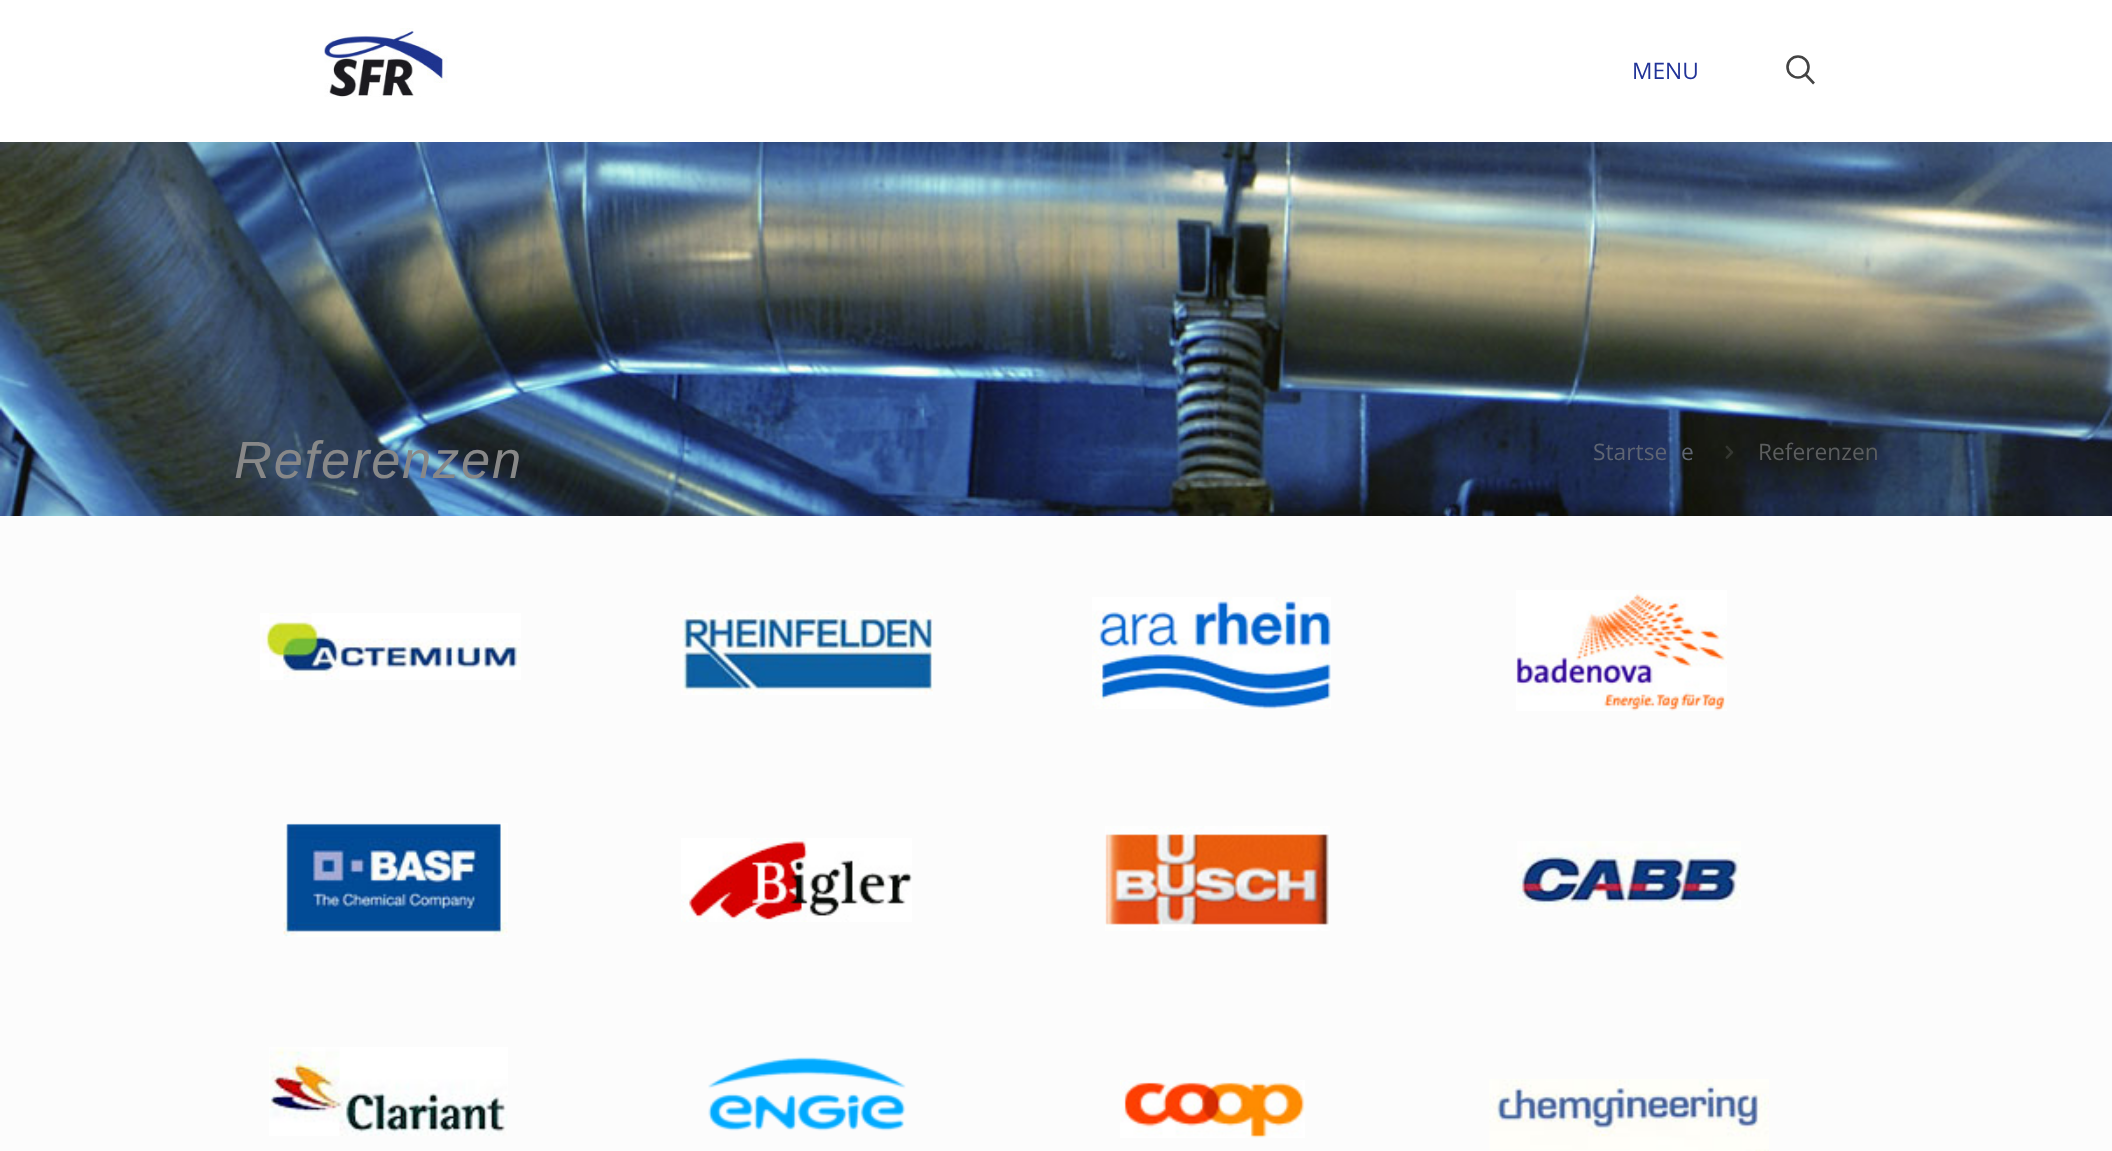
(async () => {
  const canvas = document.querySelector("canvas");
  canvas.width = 2112;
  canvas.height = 1151;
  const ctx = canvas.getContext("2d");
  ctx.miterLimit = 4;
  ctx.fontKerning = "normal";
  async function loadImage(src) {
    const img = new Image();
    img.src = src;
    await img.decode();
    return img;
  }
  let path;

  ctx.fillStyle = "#ffffff";
  ctx.fillRect(0, 0, 2112, 1151);
  ctx.drawImage(await loadImage("img/1.png"), 0, 142, 2112, 374);
  ctx.drawImage(await loadImage("img/2.png"), 324, 28, 124, 69);
  ctx.beginPath();
  ctx.arc(1798, 67, 10.5, 0, Math.PI * 2);
  ctx.strokeStyle = "#444444";
  ctx.lineWidth = 2.6;
  ctx.stroke();
  path = new Path2D("M1805.5 74.5L1814 83.5");
  ctx.stroke(path);
  ctx.drawImage(await loadImage("img/3.png"), 1725, 445, 9, 14);
  ctx.fillStyle = "#fcfcfc";
  ctx.fillRect(0, 516, 2112, 635);
  ctx.drawImage(await loadImage("img/4.png"), 260, 613, 261, 67);
  ctx.drawImage(await loadImage("img/5.png"), 681, 611, 252, 84);
  ctx.drawImage(await loadImage("img/6.png"), 1092, 597, 239, 112);
  ctx.drawImage(await loadImage("img/7.png"), 1516, 590, 211, 121);
  ctx.drawImage(await loadImage("img/8.png"), 283, 823, 225, 114);
  ctx.drawImage(await loadImage("img/9.png"), 681, 838, 231, 84);
  ctx.drawImage(await loadImage("img/10.png"), 1105, 826, 225, 105);
  ctx.drawImage(await loadImage("img/11.png"), 1517, 841, 224, 68);
  ctx.drawImage(await loadImage("img/12.png"), 269, 1047, 239, 89);
  ctx.drawImage(await loadImage("img/13.png"), 708, 1057, 198, 74);
  ctx.drawImage(await loadImage("img/14.png"), 1120, 1080, 185, 58);
  ctx.drawImage(await loadImage("img/15.png"), 1489, 1079, 280, 72);
  ctx.font = "22.75px Open Sans";
  ctx.fillStyle = "#213398";
  ctx.fillText("MENU", 1632, 79);
  ctx.letterSpacing = "1.75px";
  ctx.font = "italic 52.5px Liberation Sans";
  ctx.fillStyle = "#888888";
  ctx.fillText("Referenzen", 234, 478);
  ctx.letterSpacing = "0px";
  ctx.font = "22.75px Open Sans";
  ctx.fillStyle = "#5f6573";
  ctx.fillText("Startse", 1593, 460);
  ctx.fillText("e", 1681, 460);
  ctx.fillStyle = "#5c5e5f";
  ctx.fillText("Referenzen", 1758, 460);
})();
